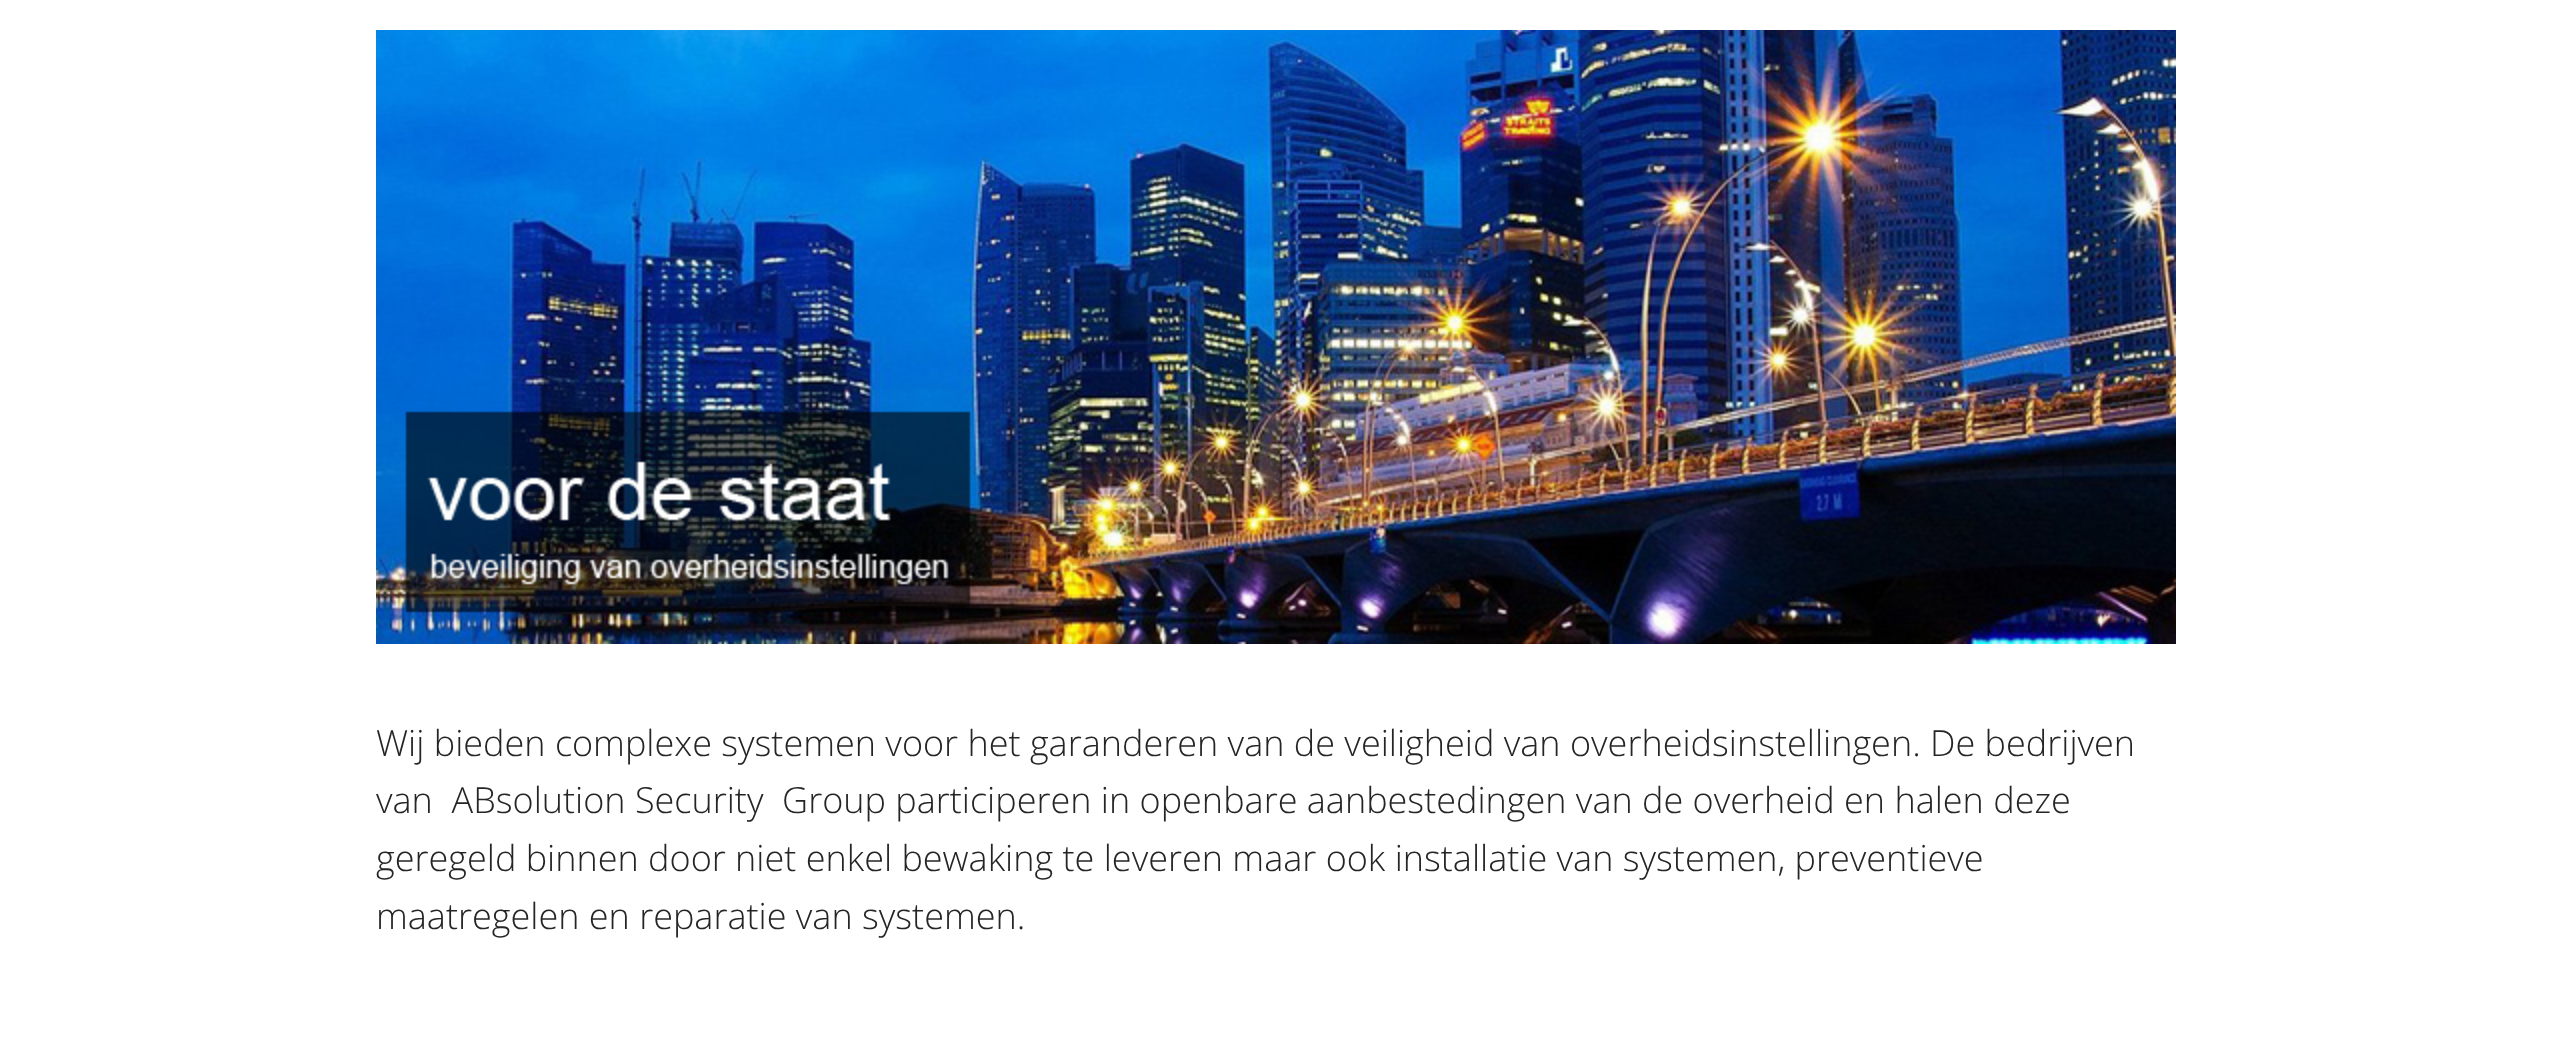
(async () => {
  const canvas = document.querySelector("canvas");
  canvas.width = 2552;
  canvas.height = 1046;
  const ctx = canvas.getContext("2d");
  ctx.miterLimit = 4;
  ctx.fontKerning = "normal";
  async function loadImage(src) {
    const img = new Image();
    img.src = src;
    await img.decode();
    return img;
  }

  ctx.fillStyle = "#ffffff";
  ctx.fillRect(0, 0, 2552, 1046);
  ctx.drawImage(await loadImage("img/1.png"), 376, 30, 1800, 614);
  ctx.font = "300 36px Open Sans";
  ctx.fillStyle = "#252525";
  for (const [text, x, y] of [
    ["Wij bieden complexe systemen voor het garanderen van de veiligheid van overheidsinstellingen. De bedrijven", 376, 756],
    ["van  ABsolution Security  Group participeren in openbare aanbestedingen van de overheid en halen deze", 376, 813],
    ["geregeld binnen door niet enkel bewaking te leveren maar ook installatie van systemen, preventieve", 376, 871],
    ["maatregelen en reparatie van systemen.", 376, 929],
  ]) {
    ctx.fillText(text, x, y);
  }
})();
